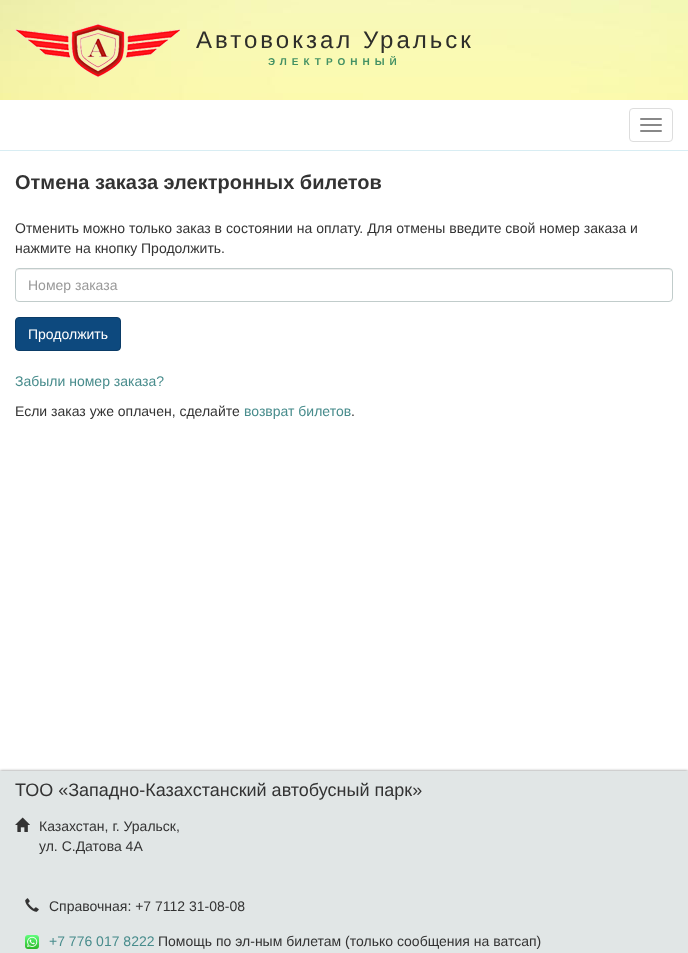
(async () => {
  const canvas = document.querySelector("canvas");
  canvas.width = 688;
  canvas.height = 953;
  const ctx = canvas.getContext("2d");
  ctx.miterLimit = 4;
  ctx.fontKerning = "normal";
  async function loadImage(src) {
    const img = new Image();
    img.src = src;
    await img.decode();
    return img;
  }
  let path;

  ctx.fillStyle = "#ffffff";
  ctx.fillRect(0, 0, 688, 953);
  ctx.drawImage(await loadImage("img/1.png"), 0, 0, 688, 100);
  ctx.drawImage(await loadImage("img/2.png"), 15, 24, 166, 53);
  ctx.fillStyle = "#d8edf3";
  ctx.fillRect(0, 150, 688, 1);
  ctx.beginPath();
  ctx.roundRect(629.5, 108.5, 43, 33, 3.5);
  ctx.strokeStyle = "#dddddd";
  ctx.stroke();
  ctx.fillStyle = "#888888";
  ctx.beginPath();
  ctx.roundRect(640, 118, 22, 2, 1);
  ctx.fill();
  ctx.beginPath();
  ctx.roundRect(640, 124, 22, 2, 1);
  ctx.fill();
  ctx.beginPath();
  ctx.roundRect(640, 130, 22, 2, 1);
  ctx.fill();
  ctx.fillStyle = "#ececec";
  path = new Path2D("M19 270H669C671 270 672 271 672 273C672 271 671 269 669 269H19C17 269 16 271 16 273C16 271 17 270 19 270Z");
  ctx.fill(path);
  ctx.beginPath();
  ctx.roundRect(15.5, 268.5, 657, 33, 3.5);
  ctx.strokeStyle = "#c1cccb";
  ctx.stroke();
  ctx.fillStyle = "#0d497e";
  ctx.beginPath();
  ctx.roundRect(15.5, 317.5, 105, 33, 3.5);
  ctx.fill();
  ctx.strokeStyle = "#0b3c67";
  ctx.stroke();
  ctx.fillStyle = "rgba(0, 0, 0, 0.5)";
  ctx.filter = "blur(1.5px)";
  ctx.beginPath();
  ctx.rect(0, 771, 688, 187);
  ctx.fill();
  ctx.filter = "none";
  ctx.fillStyle = "#e1e6e6";
  ctx.fillRect(0, 771, 688, 182);
  ctx.drawImage(await loadImage("img/3.png"), 15, 817, 15, 15);
  ctx.drawImage(await loadImage("img/4.png"), 25, 898, 14, 14);
  ctx.drawImage(await loadImage("img/5.png"), 25, 935, 14, 14);
  ctx.letterSpacing = "3px";
  ctx.font = "24px Liberation Sans";
  ctx.fillStyle = "#2e2e2a";
  ctx.fillText("Автовокзал Уральск", 196, 48);
  ctx.letterSpacing = "5px";
  ctx.font = "bold 10px Liberation Sans";
  ctx.fillStyle = "#449164";
  ctx.fillText("ЭЛЕКТРОННЫЙ", 268, 65);
  ctx.letterSpacing = "0px";
  ctx.font = "bold 20px Liberation Sans";
  ctx.fillStyle = "#333333";
  ctx.fillText("Отмена заказа электронных билетов", 15, 189);
  ctx.font = "14px Liberation Sans";
  ctx.fillText("Отменить можно только заказ в состоянии на оплату. Для отмены введите свой номер заказа и", 15, 233);
  ctx.fillText("нажмите на кнопку Продолжить.", 15, 253);
  ctx.fillStyle = "#999999";
  ctx.fillText("Номер заказа", 28, 290);
  ctx.fillStyle = "#ffffff";
  ctx.fillText("Продолжить", 28, 339);
  ctx.fillStyle = "#488c8c";
  ctx.fillText("Забыли номер заказа?", 15, 386);
  ctx.fillStyle = "#333333";
  ctx.fillText("Если заказ уже оплачен, сделайте", 15, 416);
  ctx.fillStyle = "#488c8c";
  ctx.fillText("возврат билетов", 244, 416);
  ctx.fillStyle = "#333333";
  ctx.fillText(".", 351, 416);
  ctx.font = "18px Liberation Sans";
  ctx.fillText("ТОО «Западно-Казахстанский автобусный парк»", 15, 796);
  ctx.font = "14px Liberation Sans";
  for (const [text, x, y] of [
    ["Казахстан, г. Уральск,", 39, 831],
    ["ул. С.Датова 4А", 39, 851],
    ["Справочная: +7 7112 31-08-08", 49, 911],
  ]) {
    ctx.fillText(text, x, y);
  }
  ctx.fillStyle = "#488c8c";
  ctx.fillText("+7 776 017 8222", 49, 946);
  ctx.fillStyle = "#333333";
  ctx.fillText("Помощь по эл-ным билетам (только сообщения на ватсап)", 158, 946);
})();
